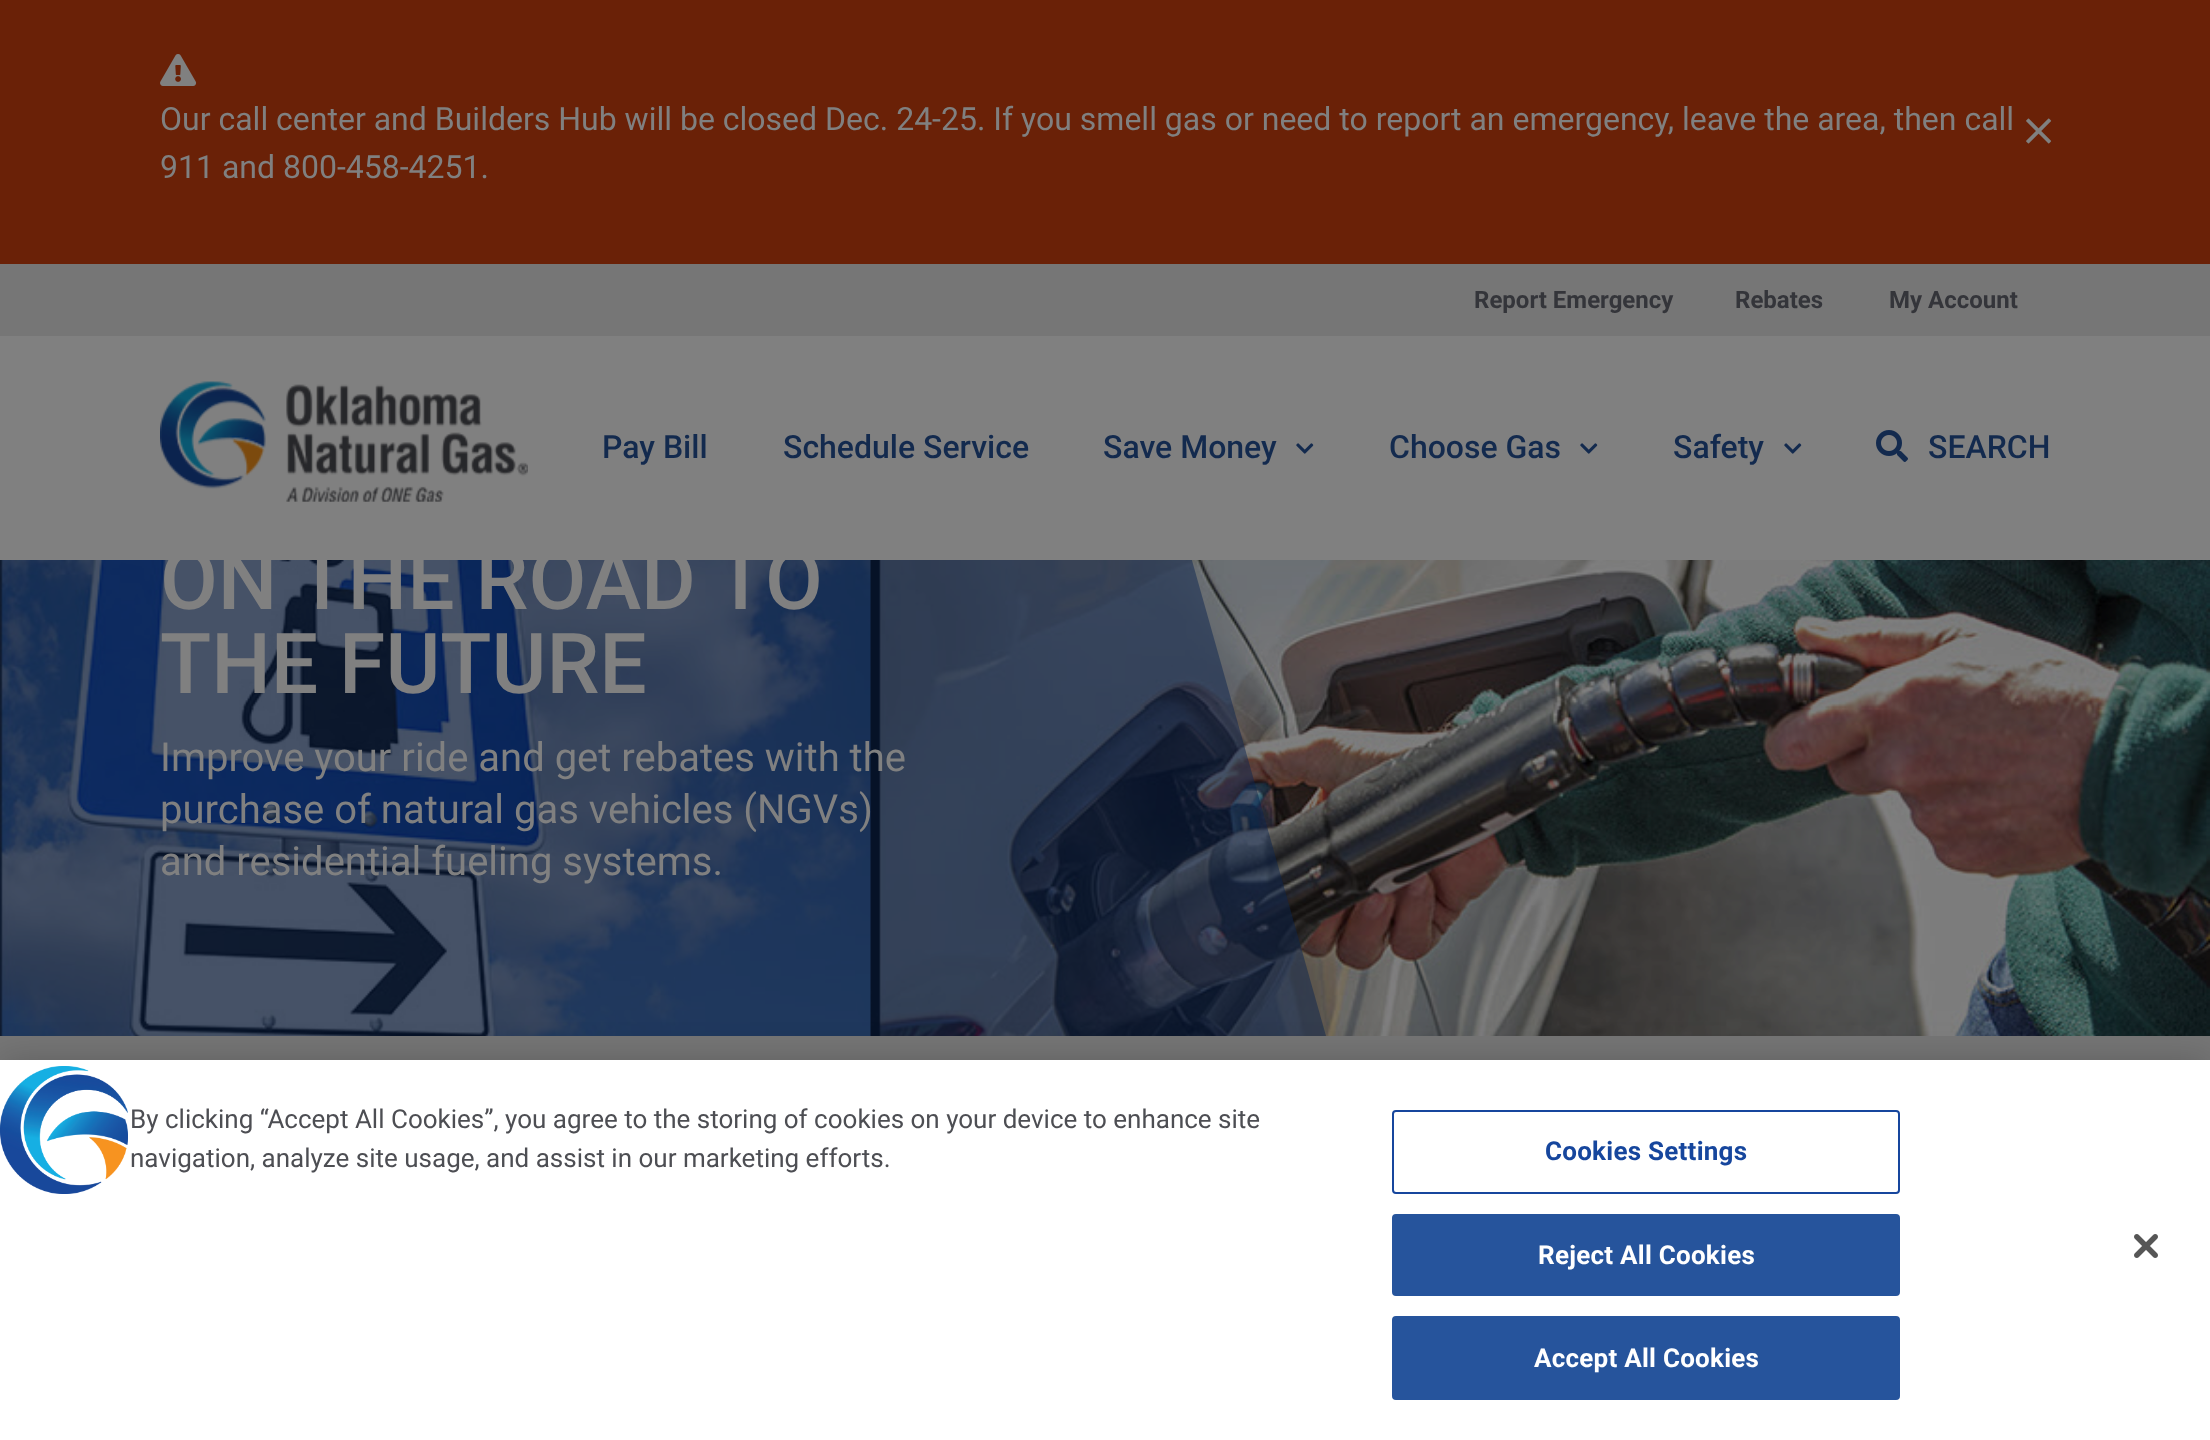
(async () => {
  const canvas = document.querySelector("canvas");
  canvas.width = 2210;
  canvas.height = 1440;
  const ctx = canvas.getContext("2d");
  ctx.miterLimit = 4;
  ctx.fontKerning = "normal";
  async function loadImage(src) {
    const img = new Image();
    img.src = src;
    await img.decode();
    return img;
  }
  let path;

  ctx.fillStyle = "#767676";
  ctx.fillRect(0, 0, 2210, 1440);
  ctx.fillStyle = "#6a2107";
  ctx.fillRect(0, 0, 2210, 264);
  ctx.drawImage(await loadImage("img/1.png"), 160, 54, 37, 32);
  ctx.drawImage(await loadImage("img/2.png"), 2026, 118, 26, 26);
  ctx.drawImage(await loadImage("img/6.png"), 0, 560, 2210, 476);
  ctx.fillStyle = "rgba(11, 35, 78, 0.5)";
  path = new Path2D("M0 376V1036H1326L1140 376Z");
  ctx.fill(path);
  ctx.fillStyle = "#808080";
  ctx.fillRect(0, 336, 2210, 224);
  ctx.drawImage(await loadImage("img/3.png"), 160, 381, 368, 121);
  ctx.drawImage(await loadImage("img/4.png"), 1296, 443, 18, 11);
  ctx.drawImage(await loadImage("img/4.png"), 1580, 443, 18, 11);
  ctx.drawImage(await loadImage("img/4.png"), 1784, 443, 18, 11);
  ctx.drawImage(await loadImage("img/5.png"), 1876, 430, 32, 32);
  ctx.fillStyle = "rgba(0, 0, 0, 0.2)";
  ctx.filter = "blur(18px)";
  ctx.beginPath();
  ctx.rect(0, 1060, 2210, 380);
  ctx.fill();
  ctx.filter = "none";
  ctx.fillStyle = "#ffffff";
  ctx.fillRect(0, 1060, 2210, 380);
  ctx.drawImage(await loadImage("img/7.png"), 0, 1066, 128, 128);
  ctx.beginPath();
  ctx.roundRect(1393, 1111, 506, 82, 3);
  ctx.strokeStyle = "#16469d";
  ctx.lineWidth = 2;
  ctx.stroke();
  ctx.fillStyle = "#26549c";
  ctx.beginPath();
  ctx.roundRect(1393, 1215, 506, 80, 3);
  ctx.fill();
  ctx.strokeStyle = "#26549c";
  ctx.stroke();
  ctx.beginPath();
  ctx.roundRect(1393, 1317, 506, 82, 3);
  ctx.fill();
  ctx.stroke();
  ctx.drawImage(await loadImage("img/8.png"), 2134, 1234, 24, 24);
  ctx.font = "32px Roboto";
  ctx.fillStyle = "#808080";
  ctx.fillText("Our call center and Builders Hub will be closed Dec. 24-25. If you smell gas or need to report an emergency, leave the area, then call", 160, 130);
  ctx.fillText("911 and 800-458-4251.", 160, 178);
  ctx.font = "bold 24px Roboto";
  ctx.fillStyle = "#34353a";
  for (const [text, x, y] of [
    ["Report Emergency", 1474, 308],
    ["Rebates", 1735, 308],
    ["My Account", 1889, 308],
  ]) {
    ctx.fillText(text, x, y);
  }
  ctx.font = "500 32px Roboto";
  ctx.fillStyle = "#132a4e";
  for (const [text, x, y] of [
    ["Pay Bill", 602, 458],
    ["Schedule Service", 783, 458],
    ["Save Money", 1103, 458],
    ["Choose Gas", 1389, 458],
    ["Safety", 1673, 458],
    ["SEARCH", 1928, 458],
  ]) {
    ctx.fillText(text, x, y);
  }
  ctx.font = "500 84px Roboto";
  ctx.fillStyle = "#808080";
  ctx.fillText("ON THE ROAD TO", 160, 609);
  ctx.fillText("THE FUTURE", 160, 693);
  ctx.font = "40px Roboto";
  for (const [text, x, y] of [
    ["Improve your ride and get rebates with the", 160, 771],
    ["purchase of natural gas vehicles (NGVs)", 160, 823],
    ["and residential fueling systems.", 160, 875],
  ]) {
    ctx.fillText(text, x, y);
  }
  ctx.font = "26px Roboto";
  ctx.fillStyle = "#4d4e53";
  ctx.fillText("By clicking “Accept All Cookies”, you agree to the storing of cookies on your device to enhance site", 130, 1128);
  ctx.fillText("navigation, analyze site usage, and assist in our marketing efforts.", 130, 1167);
  ctx.letterSpacing = "0.25px";
  ctx.font = "bold 26px Roboto";
  ctx.fillStyle = "#16469d";
  ctx.fillText("Cookies Settings", 1545, 1160);
  ctx.fillStyle = "#ffffff";
  ctx.fillText("Reject All Cookies", 1538, 1264);
  ctx.fillText("Accept All Cookies", 1534, 1367);
})();
